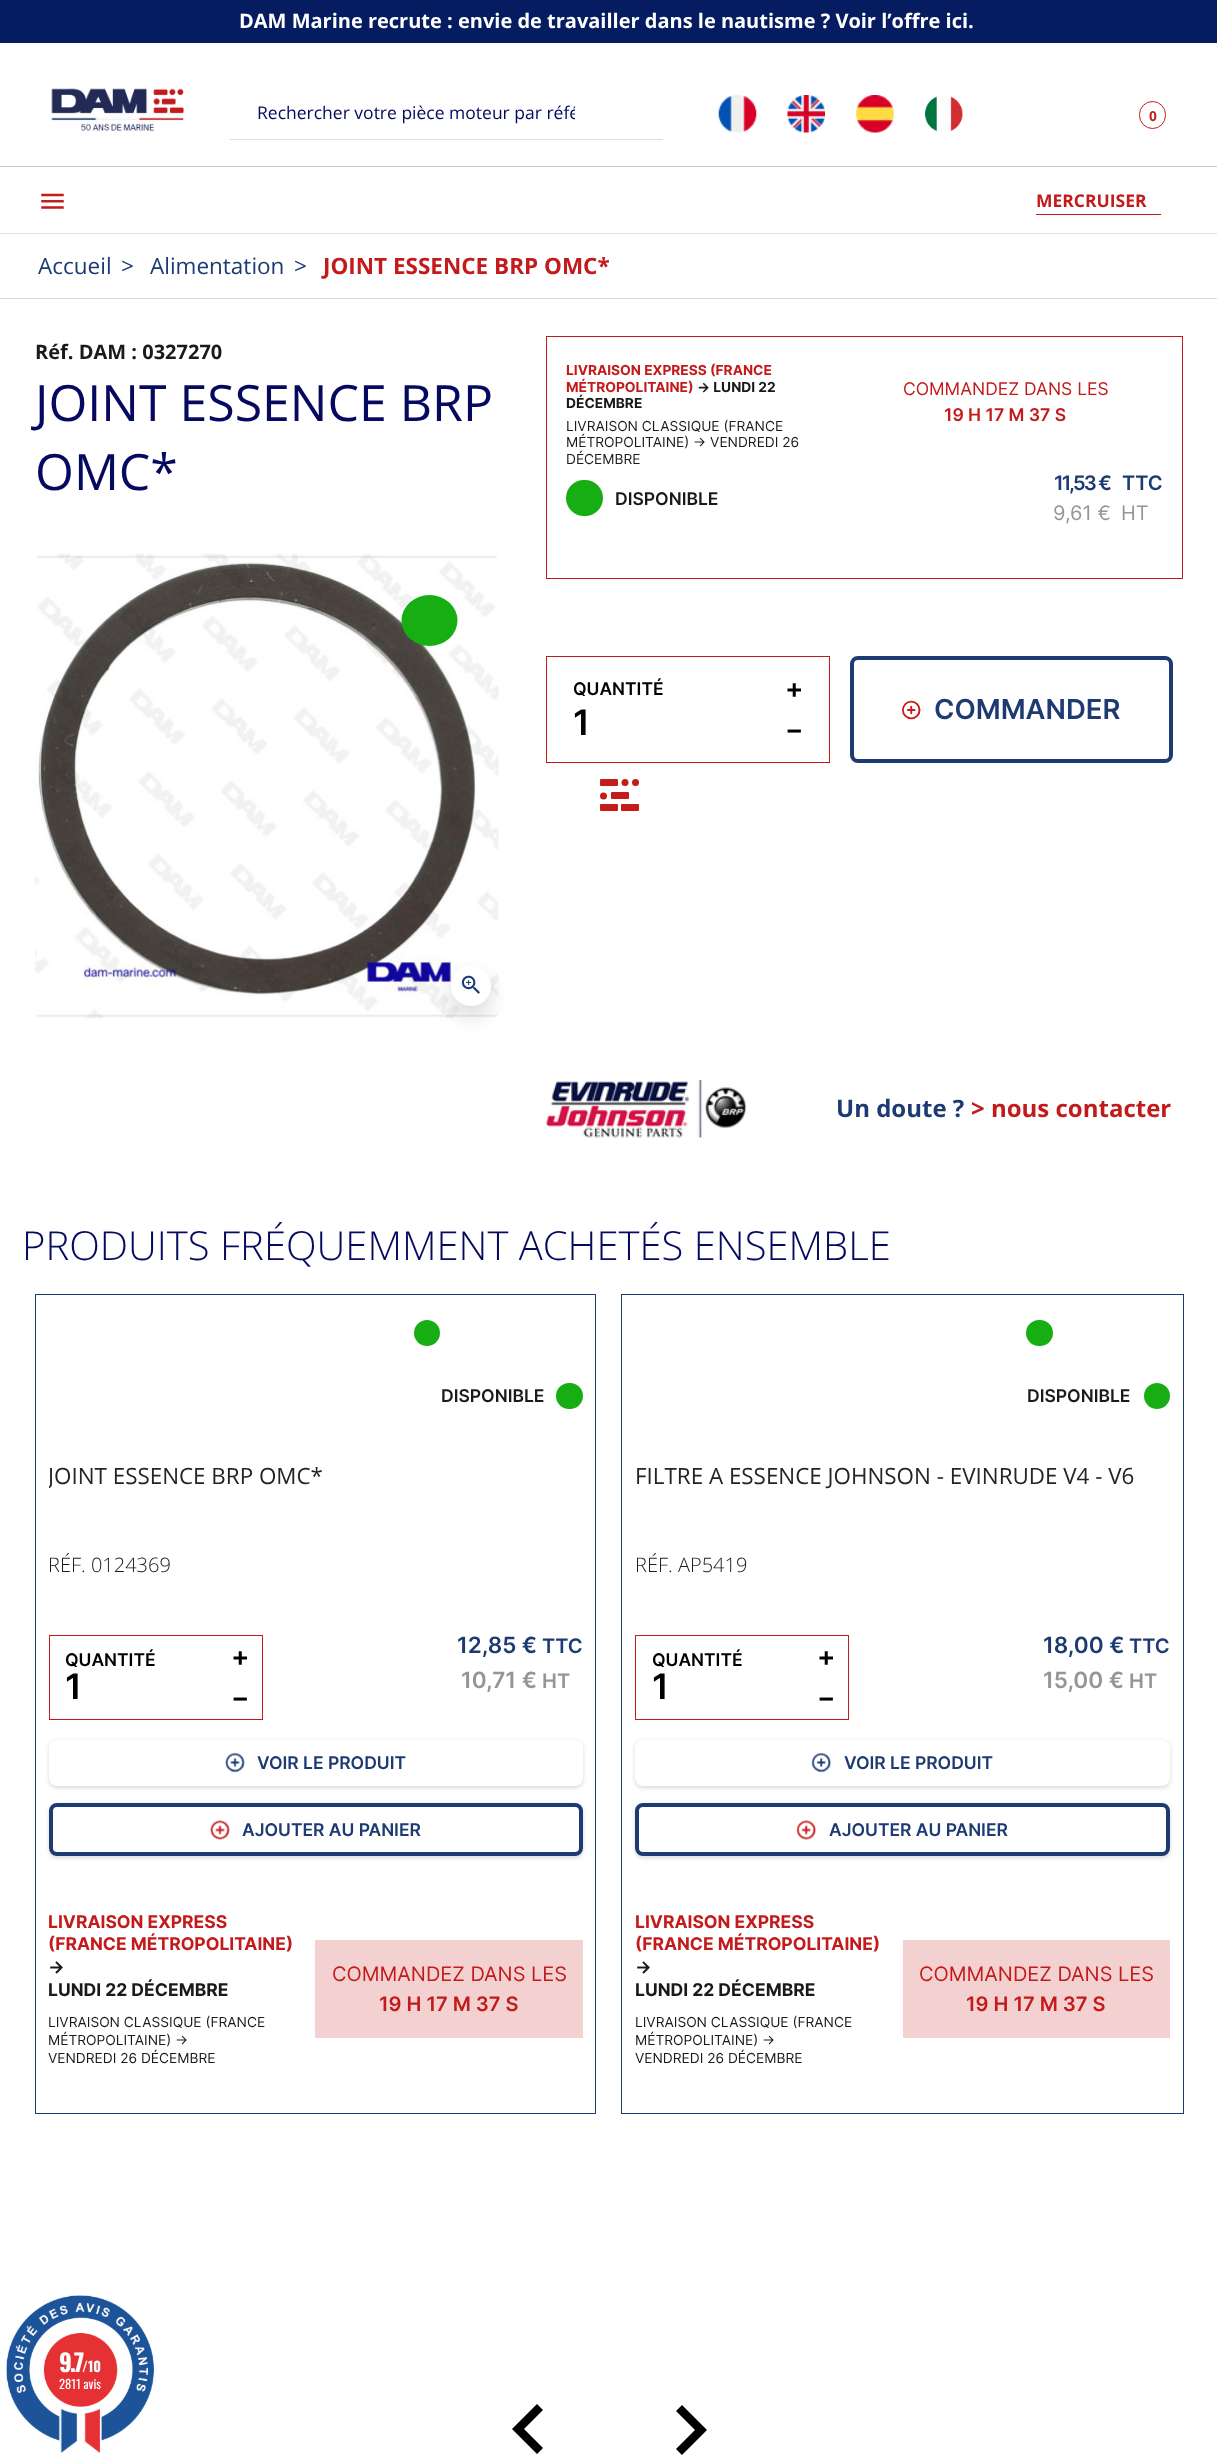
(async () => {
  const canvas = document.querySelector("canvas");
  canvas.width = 1217;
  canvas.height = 2460;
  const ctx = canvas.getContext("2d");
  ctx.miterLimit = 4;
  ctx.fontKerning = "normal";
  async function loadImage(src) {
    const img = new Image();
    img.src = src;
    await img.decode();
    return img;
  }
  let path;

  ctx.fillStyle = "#ffffff";
  ctx.fillRect(0, 0, 1217, 2460);
  for (const [x, y, w, h, color] of [
    [0, 233, 1217, 1, "#dee2e6"],
    [0, 0, 1217, 43, "#051d60"],
    [0, 166, 1217, 1, "#c9c9c9"],
  ]) {
    ctx.fillStyle = color;
    ctx.fillRect(x, y, w, h);
  }
  ctx.drawImage(await loadImage("img/1.png"), 51, 88, 133, 43);
  ctx.fillStyle = "#dddddd";
  ctx.fillRect(230, 139, 433, 1);
  ctx.drawImage(await loadImage("img/2.png"), 718, 95, 39, 38);
  ctx.drawImage(await loadImage("img/3.png"), 787, 95, 38, 38);
  ctx.drawImage(await loadImage("img/4.png"), 856, 95, 38, 38);
  ctx.drawImage(await loadImage("img/5.png"), 925, 96, 38, 35);
  ctx.beginPath();
  ctx.roundRect(1139.5, 101.5, 26, 27, 13);
  ctx.strokeStyle = "#c31b1b";
  ctx.stroke();
  ctx.drawImage(await loadImage("img/6.png"), 41, 193, 23, 16);
  ctx.fillStyle = "#c31b1b";
  ctx.fillRect(1036, 214, 125, 1);
  ctx.fillStyle = "#d9d9d9";
  ctx.fillRect(0, 298, 1217, 1);
  ctx.drawImage(await loadImage("img/7.png"), 35, 554, 464, 465);
  ctx.fillStyle = "#17ae14";
  ctx.beginPath();
  ctx.ellipse(429.5, 620.5, 28, 25.5, 0, 0, Math.PI * 2);
  ctx.fill();
  ctx.fillStyle = "rgba(0, 0, 0, 0.15)";
  ctx.filter = "blur(10px)";
  ctx.beginPath();
  ctx.roundRect(451, 976, 40, 40, 20);
  ctx.fill();
  ctx.filter = "none";
  ctx.fillStyle = "#ffffff";
  ctx.beginPath();
  ctx.arc(471, 986, 20, 0, Math.PI * 2);
  ctx.fill();
  ctx.drawImage(await loadImage("img/8.png"), 461, 975, 19, 19);
  ctx.strokeRect(546.5, 336.5, 636, 242);
  ctx.fillStyle = "#17ae14";
  ctx.beginPath();
  ctx.roundRect(566, 480, 37, 36, 18);
  ctx.fill();
  ctx.strokeRect(546.5, 656.5, 283, 106);
  ctx.beginPath();
  ctx.roundRect(852, 658, 319, 103, 6);
  ctx.strokeStyle = "#1d3a72";
  ctx.lineWidth = 4;
  ctx.stroke();
  ctx.drawImage(await loadImage("img/9.png"), 902, 700, 19, 20);
  ctx.fillStyle = "#c41b1b";
  ctx.beginPath();
  ctx.roundRect(600, 779, 18, 7, 1);
  ctx.fill();
  ctx.beginPath();
  ctx.arc(625, 782.5, 3.5, 0, Math.PI * 2);
  ctx.fill();
  ctx.beginPath();
  ctx.arc(635.5, 782.5, 3.5, 0, Math.PI * 2);
  ctx.fill();
  ctx.beginPath();
  ctx.arc(603.5, 796, 3.5, 0, Math.PI * 2);
  ctx.fill();
  ctx.beginPath();
  ctx.roundRect(611, 792, 18, 7, 1);
  ctx.fill();
  ctx.beginPath();
  ctx.roundRect(600, 804, 18, 7, 1);
  ctx.fill();
  ctx.beginPath();
  ctx.roundRect(621, 804, 18, 7, 1);
  ctx.fill();
  ctx.drawImage(await loadImage("img/10.png"), 546, 1079, 201, 59);
  ctx.lineWidth = 1;
  ctx.strokeRect(35.5, 1294.5, 560, 819);
  ctx.fillStyle = "#17ae14";
  ctx.beginPath();
  ctx.arc(427, 1333, 13, 0, Math.PI * 2);
  ctx.fill();
  ctx.beginPath();
  ctx.roundRect(556, 1383, 27, 26, 13);
  ctx.fill();
  ctx.strokeStyle = "#c31b1b";
  ctx.strokeRect(49.5, 1635.5, 213, 84);
  ctx.fillStyle = "rgba(0, 0, 0, 0.15)";
  ctx.filter = "blur(2px)";
  ctx.beginPath();
  ctx.roundRect(49, 1741, 534, 47, 8);
  ctx.fill();
  ctx.filter = "none";
  ctx.fillStyle = "#ffffff";
  ctx.beginPath();
  ctx.roundRect(49, 1740, 534, 46, 8);
  ctx.fill();
  ctx.drawImage(await loadImage("img/11.png"), 225, 1752, 20, 21);
  ctx.fillStyle = "rgba(0, 0, 0, 0.15)";
  ctx.filter = "blur(2px)";
  ctx.beginPath();
  ctx.roundRect(49, 1804, 534, 54, 8);
  ctx.fill();
  ctx.filter = "none";
  ctx.fillStyle = "#ffffff";
  ctx.beginPath();
  ctx.roundRect(51, 1805, 530, 49, 6);
  ctx.fill();
  ctx.strokeStyle = "#1d3a72";
  ctx.lineWidth = 4;
  ctx.stroke();
  ctx.drawImage(await loadImage("img/12.png"), 210, 1820, 20, 20);
  ctx.fillStyle = "#f3d1d1";
  ctx.fillRect(315, 1940, 268, 98);
  ctx.lineWidth = 1;
  ctx.strokeRect(621.5, 1294.5, 562, 819);
  ctx.fillStyle = "#17ae14";
  ctx.beginPath();
  ctx.roundRect(1026, 1320, 27, 26, 13);
  ctx.fill();
  ctx.beginPath();
  ctx.arc(1157, 1396, 13, 0, Math.PI * 2);
  ctx.fill();
  ctx.strokeStyle = "#c31b1b";
  ctx.strokeRect(635.5, 1635.5, 213, 84);
  ctx.fillStyle = "rgba(0, 0, 0, 0.15)";
  ctx.filter = "blur(2px)";
  ctx.beginPath();
  ctx.roundRect(635, 1741, 535, 47, 8);
  ctx.fill();
  ctx.filter = "none";
  ctx.fillStyle = "#ffffff";
  ctx.beginPath();
  ctx.roundRect(635, 1740, 535, 46, 8);
  ctx.fill();
  ctx.drawImage(await loadImage("img/13.png"), 811, 1752, 21, 21);
  ctx.fillStyle = "rgba(0, 0, 0, 0.15)";
  ctx.filter = "blur(2px)";
  ctx.beginPath();
  ctx.roundRect(635, 1804, 535, 54, 8);
  ctx.fill();
  ctx.filter = "none";
  ctx.fillStyle = "#ffffff";
  ctx.beginPath();
  ctx.roundRect(637, 1805, 531, 49, 6);
  ctx.fill();
  ctx.strokeStyle = "#1d3a72";
  ctx.lineWidth = 4;
  ctx.stroke();
  ctx.drawImage(await loadImage("img/14.png"), 796, 1820, 21, 20);
  ctx.fillStyle = "#f3d1d1";
  ctx.fillRect(903, 1940, 267, 98);
  ctx.fillStyle = "#000000";
  path = new Path2D("M543 2448L537 2454L512 2429L537 2404L543 2410L524 2429Z");
  ctx.fill(path);
  path = new Path2D("M676 2449L695 2430L676 2411L682 2405L707 2430L682 2455Z");
  ctx.fill(path);
  ctx.drawImage(await loadImage("img/15.png"), 6, 2295, 148, 158);
  ctx.font = "bold 20px Open Sans";
  ctx.fillStyle = "#ffffff";
  ctx.fillText("DAM Marine recrute : envie de travailler dans le nautisme ? Voir l’offre ici.", 239, 28);
  ctx.save();
  ctx.beginPath();
  ctx.rect(256, 100, 319, 24);
  ctx.clip();
  ctx.font = "17.5px Open Sans";
  ctx.fillStyle = "#05095f";
  ctx.fillText("Rechercher votre pièce moteur par réfé", 257, 119);
  ctx.restore();
  ctx.font = "bold 13.75px Open Sans";
  ctx.fillStyle = "#c31b1b";
  ctx.fillText("0", 1149, 121);
  ctx.font = "bold 17.5px Open Sans";
  ctx.fillText("MERCRUISER", 1036, 207);
  ctx.font = "22.5px Open Sans";
  ctx.fillStyle = "#1d3a72";
  for (const [text, x, y] of [
    ["Accueil", 38, 274],
    [">", 121, 274],
    ["Alimentation", 150, 274],
    [">", 294, 274],
  ]) {
    ctx.fillText(text, x, y);
  }
  ctx.font = "bold 22.5px Open Sans";
  ctx.fillStyle = "#c31b1b";
  ctx.fillText("JOINT ESSENCE BRP OMC*", 323, 274);
  ctx.font = "bold 20px Open Sans";
  ctx.fillStyle = "#1a1a1a";
  ctx.fillText("Réf. DAM : 0327270", 35, 359);
  ctx.font = "50px Open Sans";
  ctx.fillStyle = "#05095f";
  ctx.fillText("JOINT ESSENCE BRP", 35, 421);
  ctx.fillText("OMC*", 35, 490);
  ctx.font = "bold 13.75px Inter";
  ctx.fillStyle = "#c31b1b";
  ctx.fillText("LIVRAISON EXPRESS (FRANCE", 566, 375);
  ctx.fillText("MÉTROPOLITAINE)", 566, 392);
  ctx.fillStyle = "#1a1a1a";
  ctx.fillText("→ LUNDI 22", 697, 392);
  ctx.fillText("DÉCEMBRE", 566, 408);
  ctx.font = "13.75px Inter";
  for (const [text, x, y] of [
    ["LIVRAISON CLASSIQUE (FRANCE", 566, 431],
    ["MÉTROPOLITAINE) → VENDREDI 26", 566, 447],
    ["DÉCEMBRE", 566, 464],
  ]) {
    ctx.fillText(text, x, y);
  }
  ctx.font = "17.5px Inter";
  ctx.fillStyle = "#c31b1b";
  ctx.fillText("COMMANDEZ DANS LES", 903, 395);
  ctx.font = "600 17.5px Inter";
  ctx.fillText("19 H 17 M 37 S", 944, 421);
  ctx.fillStyle = "#1a1a1a";
  ctx.fillText("DISPONIBLE", 615, 505);
  ctx.letterSpacing = "-1.75px";
  ctx.font = "600 20px Inter";
  ctx.fillStyle = "#1d3a72";
  ctx.fillText("11,53 €", 1054, 490);
  ctx.letterSpacing = "0px";
  ctx.fillText("TTC", 1122, 490);
  ctx.font = "20px Inter";
  ctx.fillStyle = "#959595";
  ctx.fillText("9,61 €", 1053, 520);
  ctx.fillText("HT", 1121, 520);
  ctx.font = "600 17.5px Inter";
  ctx.fillStyle = "#000000";
  ctx.fillText("QUANTITÉ", 573, 695);
  ctx.font = "600 27.5px Inter";
  ctx.fillText("+", 785, 698);
  ctx.font = "600 35px Inter";
  ctx.fillText("1", 573, 735);
  ctx.font = "600 27.5px Inter";
  ctx.fillText("−", 785, 739);
  ctx.fillStyle = "#1d3a72";
  ctx.fillText("COMMANDER", 934, 719);
  ctx.font = "bold 24px Open Sans";
  ctx.fillText("Un doute ?", 836, 1117);
  ctx.fillStyle = "#c31b1b";
  ctx.fillText("> nous contacter", 971, 1117);
  ctx.font = "300 40px Open Sans";
  ctx.fillStyle = "#05095f";
  ctx.fillText("PRODUITS FRÉQUEMMENT ACHETÉS ENSEMBLE", 22, 1260);
  ctx.font = "600 17.5px Inter";
  ctx.fillStyle = "#1a1a1a";
  ctx.fillText("DISPONIBLE", 441, 1402);
  ctx.save();
  ctx.beginPath();
  ctx.rect(49, 1461, 534, 57);
  ctx.clip();
  ctx.font = "22.4px Open Sans";
  ctx.fillStyle = "#212529";
  ctx.fillText("JOINT ESSENCE BRP OMC*", 48, 1484);
  ctx.restore();
  ctx.font = "300 20px Open Sans";
  ctx.fillText("RÉF. 0124369", 48, 1572);
  ctx.font = "600 17.5px Inter";
  ctx.fillStyle = "#000000";
  ctx.fillText("QUANTITÉ", 65, 1666);
  ctx.font = "600 27.5px Inter";
  ctx.fillText("+", 231, 1666);
  ctx.font = "600 35px Inter";
  ctx.fillText("1", 65, 1699);
  ctx.font = "600 27.5px Inter";
  ctx.fillText("−", 231, 1707);
  ctx.font = "600 17.5px Inter";
  ctx.fillStyle = "#1d3a72";
  ctx.fillText("VOIR LE PRODUIT", 257, 1769);
  ctx.fillText("AJOUTER AU PANIER", 242, 1836);
  ctx.font = "600 22.4px Inter";
  ctx.fillText("12,85 €", 457, 1653);
  ctx.font = "600 20px Inter";
  ctx.fillText("TTC", 542, 1653);
  ctx.font = "600 22.4px Inter";
  ctx.fillStyle = "#959595";
  ctx.fillText("10,71 €", 461, 1688);
  ctx.font = "600 20px Inter";
  ctx.fillText("HT", 542, 1688);
  ctx.font = "bold 17.5px Inter";
  ctx.fillStyle = "#c31b1b";
  ctx.fillText("LIVRAISON EXPRESS", 48, 1928);
  ctx.fillText("(FRANCE MÉTROPOLITAINE)", 48, 1950);
  ctx.fillStyle = "#1a1a1a";
  ctx.fillText("→", 48, 1973);
  ctx.fillText("LUNDI 22 DÉCEMBRE", 48, 1996);
  ctx.font = "13.75px Inter";
  for (const [text, x, y] of [
    ["LIVRAISON CLASSIQUE (FRANCE", 48, 2027],
    ["MÉTROPOLITAINE) →", 48, 2045],
    ["VENDREDI 26 DÉCEMBRE", 48, 2063],
  ]) {
    ctx.fillText(text, x, y);
  }
  ctx.font = "20px Inter";
  ctx.fillStyle = "#c31b1b";
  ctx.fillText("COMMANDEZ DANS LES", 332, 1981);
  ctx.font = "600 20px Inter";
  ctx.fillText("19 H 17 M 37 S", 379, 2011);
  ctx.font = "600 17.5px Inter";
  ctx.fillStyle = "#1a1a1a";
  ctx.fillText("DISPONIBLE", 1027, 1402);
  ctx.font = "22.4px Open Sans";
  ctx.fillStyle = "#212529";
  ctx.fillText("FILTRE A ESSENCE JOHNSON - EVINRUDE V4 - V6", 635, 1484);
  ctx.font = "300 20px Open Sans";
  ctx.fillStyle = "#1a1a1a";
  ctx.fillText("RÉF. AP5419", 635, 1572);
  ctx.font = "600 17.5px Inter";
  ctx.fillStyle = "#000000";
  ctx.fillText("QUANTITÉ", 652, 1666);
  ctx.font = "600 27.5px Inter";
  ctx.fillText("+", 817, 1666);
  ctx.font = "600 35px Inter";
  ctx.fillText("1", 652, 1699);
  ctx.font = "600 27.5px Inter";
  ctx.fillText("−", 817, 1707);
  ctx.font = "600 17.5px Inter";
  ctx.fillStyle = "#1d3a72";
  ctx.fillText("VOIR LE PRODUIT", 844, 1769);
  ctx.fillText("AJOUTER AU PANIER", 829, 1836);
  ctx.font = "600 22.4px Inter";
  ctx.fillText("18,00 €", 1043, 1653);
  ctx.font = "600 20px Inter";
  ctx.fillText("TTC", 1129, 1653);
  ctx.font = "600 22.4px Inter";
  ctx.fillStyle = "#959595";
  ctx.fillText("15,00 €", 1043, 1688);
  ctx.font = "600 20px Inter";
  ctx.fillText("HT", 1129, 1688);
  ctx.font = "bold 17.5px Inter";
  ctx.fillStyle = "#c31b1b";
  ctx.fillText("LIVRAISON EXPRESS", 635, 1928);
  ctx.fillText("(FRANCE MÉTROPOLITAINE)", 635, 1950);
  ctx.fillStyle = "#1a1a1a";
  ctx.fillText("→", 635, 1973);
  ctx.fillText("LUNDI 22 DÉCEMBRE", 635, 1996);
  ctx.font = "13.75px Inter";
  for (const [text, x, y] of [
    ["LIVRAISON CLASSIQUE (FRANCE", 635, 2027],
    ["MÉTROPOLITAINE) →", 635, 2045],
    ["VENDREDI 26 DÉCEMBRE", 635, 2063],
  ]) {
    ctx.fillText(text, x, y);
  }
  ctx.font = "20px Inter";
  ctx.fillStyle = "#c31b1b";
  ctx.fillText("COMMANDEZ DANS LES", 919, 1981);
  ctx.font = "600 20px Inter";
  ctx.fillText("19 H 17 M 37 S", 966, 2011);
  ctx.letterSpacing = "-2px";
  ctx.font = "bold 24px Oswald";
  ctx.fillStyle = "#ffffff";
  ctx.fillText("9.7", 59, 2372);
  ctx.letterSpacing = "0px";
  ctx.font = "bold 14px Oswald";
  ctx.fillText("/10", 82, 2372);
  ctx.font = "12.5px Oswald";
  ctx.fillText("2811 avis", 59, 2389);
})();
